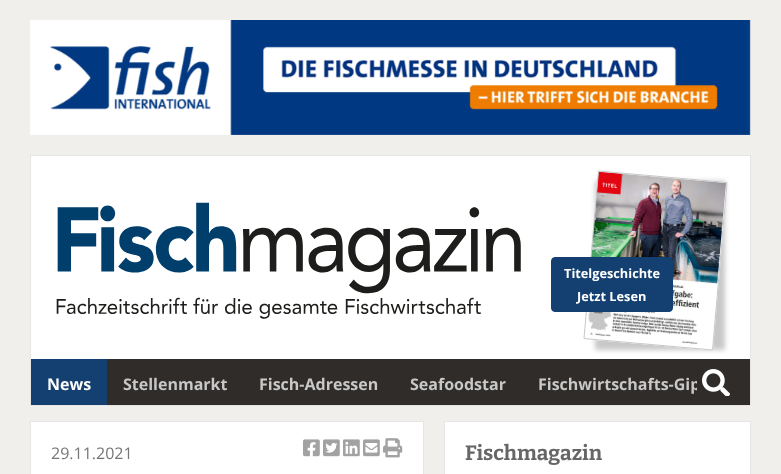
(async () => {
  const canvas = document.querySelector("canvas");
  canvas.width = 781;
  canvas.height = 474;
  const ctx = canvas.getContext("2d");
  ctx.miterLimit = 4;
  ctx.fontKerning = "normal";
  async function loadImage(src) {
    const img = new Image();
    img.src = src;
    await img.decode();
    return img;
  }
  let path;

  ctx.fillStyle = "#f1efec";
  ctx.fillRect(0, 0, 781, 474);
  ctx.drawImage(await loadImage("img/1.png"), 30, 20, 721, 115);
  for (const [x, y, w, h, color] of [
    [31, 156, 719, 203, "#ffffff"],
    [30, 155, 721, 1, "#e5e5e5"],
    [750, 155, 1, 251, "#e5e5e5"],
    [30, 155, 1, 209, "#e5e5e5"],
  ]) {
    ctx.fillStyle = color;
    ctx.fillRect(x, y, w, h);
  }
  ctx.drawImage(await loadImage("img/2.png"), 56, 202, 465, 117);
  ctx.save();
  path = new Path2D("M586 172H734V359H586ZM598 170.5L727.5 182L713 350.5L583.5 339Z");
  ctx.clip(path, "evenodd");
  ctx.fillStyle = "#c8c8c8";
  ctx.filter = "blur(2.5px)";
  ctx.beginPath();
  ctx.rect(595, 181, 130, 169);
  ctx.fill();
  ctx.filter = "none";
  ctx.restore();
  ctx.drawImage(await loadImage("img/3.png"), 588, 171, 138, 179);
  path = new Path2D("M598.5 171L727 182.5L712.5 350L584 338.5Z");
  ctx.strokeStyle = "#c8c8c8";
  ctx.stroke(path);
  ctx.fillStyle = "#144071";
  ctx.beginPath();
  ctx.roundRect(551.5, 257.5, 121, 54, 3.5);
  ctx.fill();
  ctx.strokeStyle = "#144071";
  ctx.stroke();
  for (const [x, y, w, h, color] of [
    [30, 405, 721, 1, "#e5e5e5"],
    [30, 359, 1, 47, "#e5e5e5"],
    [107, 359, 643, 46, "#2f2c2a"],
    [31, 359, 76, 46, "#144071"],
  ]) {
    ctx.fillStyle = color;
    ctx.fillRect(x, y, w, h);
  }
  ctx.fillStyle = "#ffffff";
  ctx.beginPath();
  ctx.rect(30.5, 421.5, 393, 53);
  ctx.fill();
  ctx.strokeStyle = "#e5e5e5";
  ctx.stroke();
  ctx.drawImage(await loadImage("img/5.png"), 303, 439, 17, 18);
  ctx.drawImage(await loadImage("img/6.png"), 323, 439, 17, 18);
  ctx.drawImage(await loadImage("img/7.png"), 343, 439, 17, 18);
  ctx.drawImage(await loadImage("img/8.png"), 363, 439, 17, 18);
  ctx.drawImage(await loadImage("img/9.png"), 383, 438, 20, 20);
  ctx.beginPath();
  ctx.rect(444.5, 421.5, 306, 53);
  ctx.fill();
  ctx.stroke();
  ctx.font = "bold 12.75px Open Sans";
  ctx.fillText("Titelgeschichte", 564, 278);
  ctx.fillText("Jetzt Lesen", 577, 301);
  ctx.font = "bold 16px Open Sans";
  ctx.fillText("News", 47, 390);
  ctx.fillStyle = "#c8c8c8";
  for (const [text, x, y] of [
    ["Stellenmarkt", 123, 390],
    ["Fisch-Adressen", 259, 390],
    ["Seafoodstar", 410, 390],
    ["Fischwirtschafts-Gip", 538, 390],
  ]) {
    ctx.fillText(text, x, y);
  }
  ctx.fillStyle = "#2f2c2a";
  ctx.beginPath();
  ctx.roundRect(697, 368, 43, 28, 5);
  ctx.fill();
  ctx.drawImage(await loadImage("img/4.png"), 702, 369, 28, 27);
  ctx.font = "16px Open Sans";
  ctx.fillStyle = "#767676";
  ctx.fillText("29.11.2021", 51, 459);
  ctx.font = "bold 20.75px Bitter";
  ctx.fillStyle = "#666666";
  ctx.fillText("Fischmagazin", 465, 460);
})();
